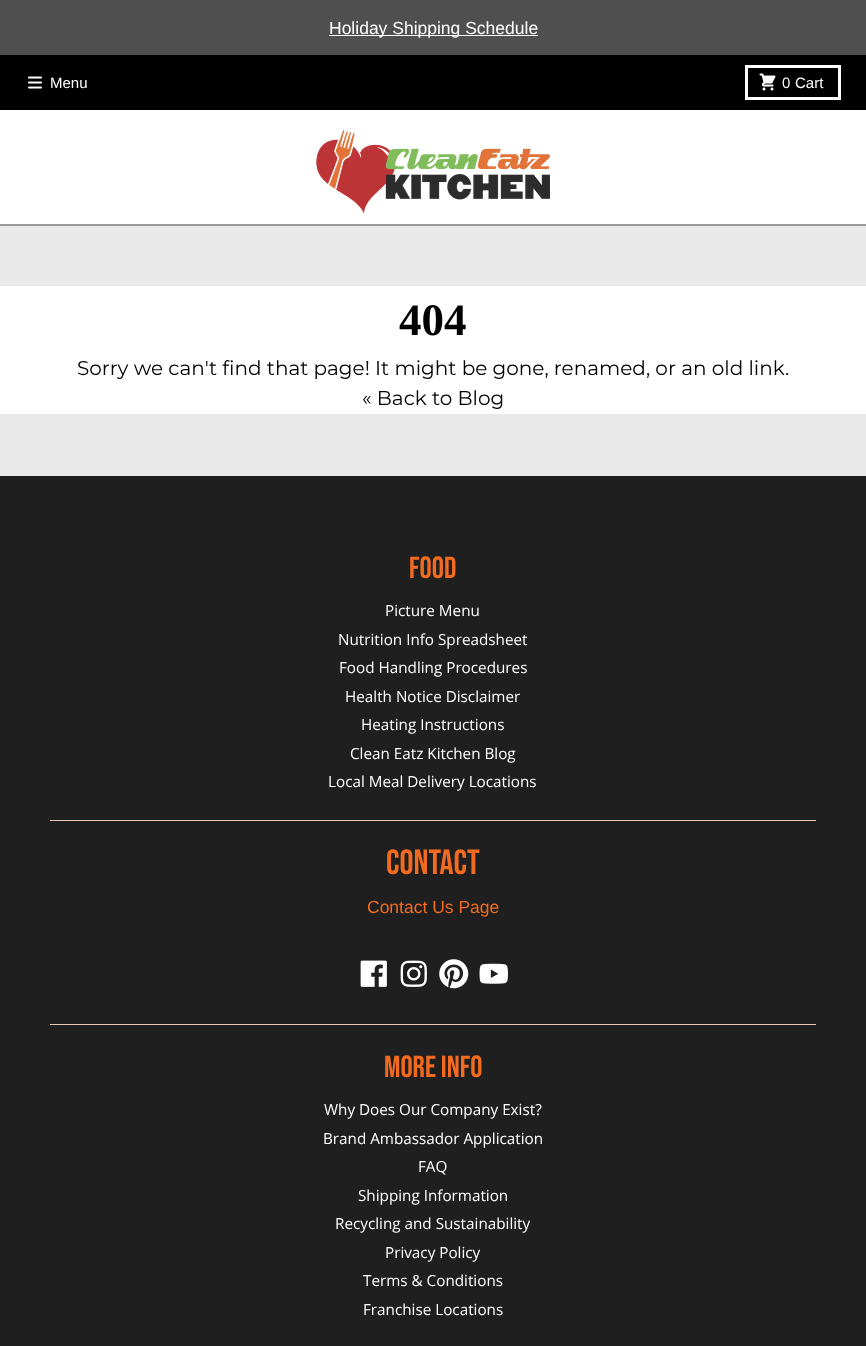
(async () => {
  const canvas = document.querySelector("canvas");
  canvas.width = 866;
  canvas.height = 1346;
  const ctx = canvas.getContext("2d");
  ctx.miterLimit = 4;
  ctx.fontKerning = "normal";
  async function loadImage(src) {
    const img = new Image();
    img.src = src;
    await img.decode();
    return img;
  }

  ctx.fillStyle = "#e9e9e9";
  ctx.fillRect(0, 0, 866, 1346);
  for (const [x, y, w, h, color] of [
    [0, 0, 866, 55, "#4f4f4f"],
    [329, 35, 209, 1, "#ffffff"],
    [0, 55, 866, 55, "#000000"],
  ]) {
    ctx.fillStyle = color;
    ctx.fillRect(x, y, w, h);
  }
  ctx.drawImage(await loadImage("img/1.png"), 28, 76, 14, 13);
  ctx.strokeStyle = "#ffffff";
  ctx.lineWidth = 3;
  ctx.strokeRect(746.5, 66.5, 93, 32);
  ctx.drawImage(await loadImage("img/2.png"), 759, 73, 17, 18);
  ctx.fillStyle = "rgba(0, 0, 0, 0.34)";
  ctx.filter = "blur(0.5px)";
  ctx.beginPath();
  ctx.rect(0, 113, 866, 113);
  ctx.fill();
  ctx.filter = "none";
  ctx.fillStyle = "#ffffff";
  ctx.fillRect(0, 110, 866, 114);
  ctx.drawImage(await loadImage("img/3.png"), 316, 130, 234, 84);
  for (const [x, y, w, h, color] of [
    [0, 286, 866, 128, "#ffffff"],
    [0, 476, 866, 870, "#1f1f1f"],
    [50, 820, 766, 1, "#ebcab7"],
  ]) {
    ctx.fillStyle = color;
    ctx.fillRect(x, y, w, h);
  }
  ctx.drawImage(await loadImage("img/4.png"), 360, 960, 27, 27);
  ctx.drawImage(await loadImage("img/5.png"), 400, 960, 27, 27);
  ctx.drawImage(await loadImage("img/6.png"), 439, 959, 30, 30);
  ctx.drawImage(await loadImage("img/7.png"), 479, 963, 29, 21);
  ctx.fillRect(50, 1024, 766, 1);
  ctx.font = "17.5px Liberation Sans";
  ctx.fillStyle = "#ffffff";
  ctx.fillText("Holiday Shipping Schedule", 329, 34);
  ctx.font = "15px Liberation Sans";
  for (const [text, x, y] of [
    ["Menu", 50, 88],
    ["0", 782, 88],
    ["Cart", 795, 88],
  ]) {
    ctx.fillText(text, x, y);
  }
  ctx.font = "bold 45px Liberation Serif";
  ctx.fillStyle = "#000000";
  ctx.fillText("404", 399, 335);
  ctx.font = "100 20px Montserrat";
  ctx.fillText("Sorry we can't find that page! It might be gone, renamed, or an old link.", 77, 375);
  ctx.fillText("« Back to Blog", 362, 405);
  ctx.font = "30.5px Bebas Neue";
  ctx.fillStyle = "#f26b21";
  ctx.fillText("FOOD", 409, 578);
  ctx.font = "15.25px Open Sans";
  ctx.fillStyle = "#ffffff";
  for (const [text, x, y] of [
    ["Picture Menu", 385, 616],
    ["Nutrition Info Spreadsheet", 338, 645],
    ["Food Handling Procedures", 339, 673],
    ["Health Notice Disclaimer", 345, 702],
    ["Heating Instructions", 361, 730],
    ["Clean Eatz Kitchen Blog", 350, 759],
    ["Local Meal Delivery Locations", 328, 787],
  ]) {
    ctx.fillText(text, x, y);
  }
  ctx.font = "35px Bebas Neue";
  ctx.fillStyle = "#f26b21";
  ctx.fillText("CONTACT", 386, 874);
  ctx.font = "17.5px Liberation Sans";
  ctx.fillText("Contact Us Page", 367, 913);
  ctx.font = "30.5px Bebas Neue";
  ctx.fillText("MORE INFO", 384, 1077);
  ctx.font = "15.25px Open Sans";
  ctx.fillStyle = "#ffffff";
  for (const [text, x, y] of [
    ["Why Does Our Company Exist?", 324, 1115],
    ["Brand Ambassador Application", 323, 1144],
    ["FAQ", 418, 1172],
    ["Shipping Information", 358, 1201],
    ["Recycling and Sustainability", 335, 1229],
    ["Privacy Policy", 385, 1258],
    ["Terms & Conditions", 363, 1286],
    ["Franchise Locations", 363, 1315],
  ]) {
    ctx.fillText(text, x, y);
  }
})();
